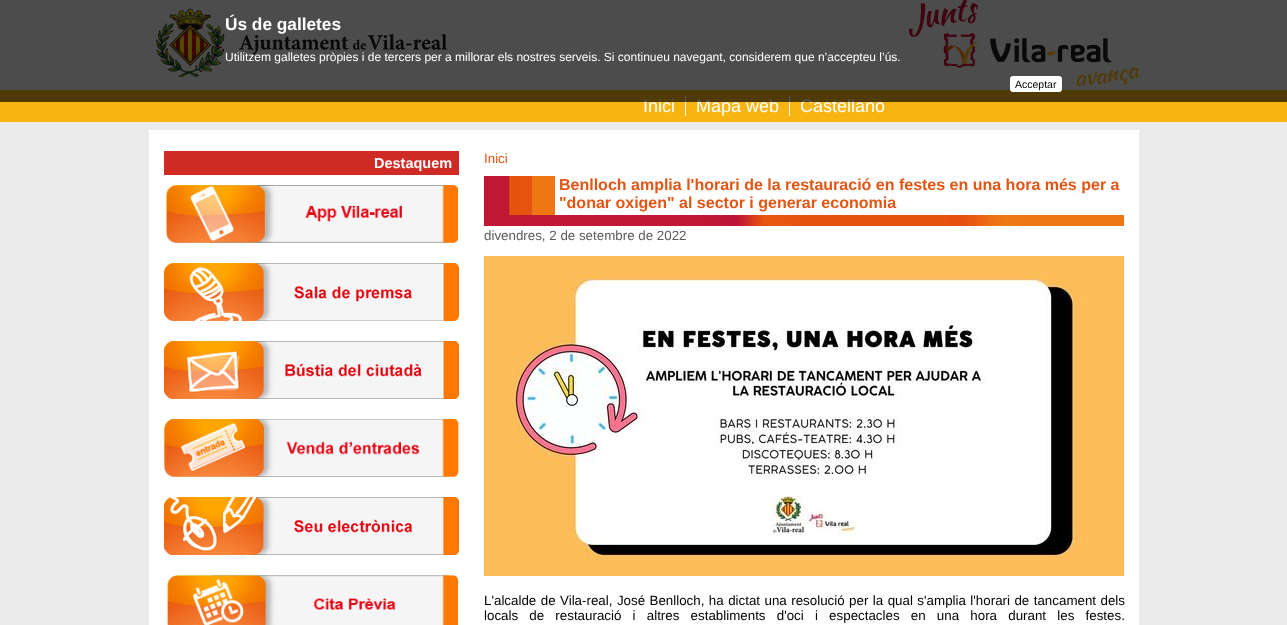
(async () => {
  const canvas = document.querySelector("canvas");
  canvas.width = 1287;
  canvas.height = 625;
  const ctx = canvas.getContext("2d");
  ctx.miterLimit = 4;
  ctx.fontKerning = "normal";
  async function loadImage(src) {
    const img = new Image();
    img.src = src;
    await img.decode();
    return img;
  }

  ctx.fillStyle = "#ebebeb";
  ctx.fillRect(0, 0, 1287, 625);
  ctx.drawImage(await loadImage("img/1.png"), 909, 0, 230, 86);
  ctx.drawImage(await loadImage("img/2.png"), 156, 8, 291, 70);
  for (const [x, y, w, h, color] of [
    [0, 90, 1287, 32, "#f8b411"],
    [685, 96, 1, 20, "#ffffff"],
    [789, 96, 1, 20, "#ffffff"],
    [149, 130, 990, 495, "#ffffff"],
    [164, 151, 295, 24, "#cf2a24"],
  ]) {
    ctx.fillStyle = color;
    ctx.fillRect(x, y, w, h);
  }
  ctx.drawImage(await loadImage("img/3.png"), 165, 185, 294, 58);
  ctx.drawImage(await loadImage("img/4.png"), 164, 263, 295, 58);
  ctx.drawImage(await loadImage("img/5.png"), 164, 341, 295, 58);
  ctx.drawImage(await loadImage("img/6.png"), 164, 419, 295, 58);
  ctx.drawImage(await loadImage("img/7.png"), 164, 497, 295, 58);
  ctx.drawImage(await loadImage("img/8.png"), 166, 575, 293, 50);
  ctx.drawImage(await loadImage("img/9.png"), 484, 176, 640, 50);
  ctx.drawImage(await loadImage("img/10.png"), 484, 256, 640, 320);
  ctx.font = "18px Liberation Sans";
  ctx.fillStyle = "#ffffff";
  for (const [text, x, y] of [
    ["Inici", 643, 112],
    ["Mapa web", 696, 112],
    ["Castellano", 800, 112],
  ]) {
    ctx.fillText(text, x, y);
  }
  ctx.fillStyle = "rgba(0, 0, 0, 0.68)";
  ctx.fillRect(0, 0, 1287, 102);
  ctx.font = "12px Liberation Sans";
  ctx.fillStyle = "#ffffff";
  ctx.fillText("Utilitzem galletes pròpies i de tercers per a millorar els nostres serveis. Si continueu navegant, considerem que n’accepteu l’ús.", 225, 61);
  ctx.font = "bold 17.25px Liberation Sans";
  ctx.fillText("Ús de galletes", 225, 30);
  ctx.beginPath();
  ctx.roundRect(1010, 76, 52, 16, 3);
  ctx.fill();
  ctx.font = "10.5px Liberation Sans";
  ctx.fillStyle = "#000000";
  ctx.fillText("Acceptar", 1015, 88);
  ctx.font = "bold 14.5px Liberation Sans";
  ctx.fillStyle = "#ffffff";
  ctx.fillText("Destaquem", 374, 168);
  ctx.font = "13.35px Liberation Sans";
  ctx.fillStyle = "#e35513";
  ctx.fillText("Inici", 484, 163);
  ctx.font = "bold 16px Liberation Sans";
  ctx.fillText("Benlloch amplia l'horari de la restauració en festes en una hora més per a", 559, 190);
  ctx.fillText("\"donar oxigen\" al sector i generar economia", 559, 208);
  ctx.font = "13.35px Liberation Sans";
  ctx.fillStyle = "#5b5b5b";
  ctx.fillText("divendres, 2 de setembre de 2022", 484, 240);
  ctx.wordSpacing = "0.75px";
  ctx.fillStyle = "#000000";
  ctx.fillText("L'alcalde de Vila-real, José Benlloch, ha dictat una resolució per la qual s'amplia l'horari de tancament dels", 484, 605);
  ctx.wordSpacing = "7.5px";
  ctx.fillText("locals de restauració i altres establiments d'oci i espectacles en una hora durant les festes.", 484, 620);
})();
